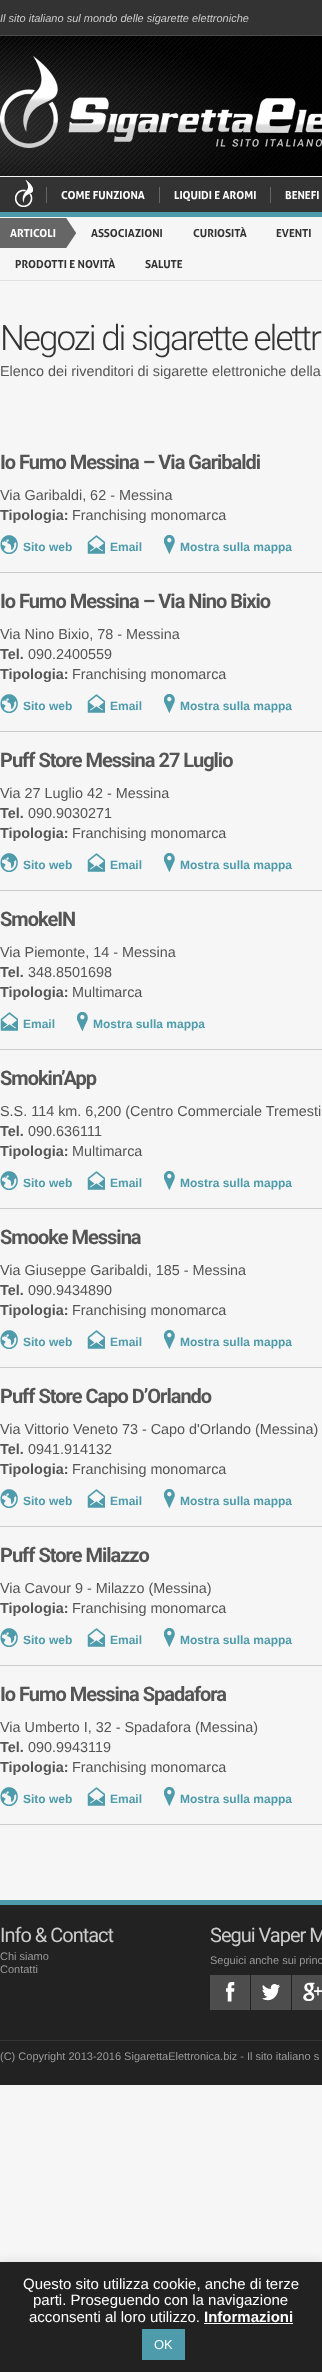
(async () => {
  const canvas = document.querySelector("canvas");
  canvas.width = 322;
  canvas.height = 2372;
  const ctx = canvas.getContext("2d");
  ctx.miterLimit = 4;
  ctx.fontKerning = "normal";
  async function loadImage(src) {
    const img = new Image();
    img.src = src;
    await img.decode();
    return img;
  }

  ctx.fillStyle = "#f6f6f6";
  ctx.fillRect(0, 0, 322, 2372);
  for (const [x, y, w, h, color] of [
    [0, 0, 322, 35, "#333333"],
    [0, 35, 322, 1, "#4d4d4d"],
    [321, 36, 1, 140, "#000000"],
  ]) {
    ctx.fillStyle = color;
    ctx.fillRect(x, y, w, h);
  }
  ctx.drawImage(await loadImage("img/1.png"), 0, 36, 321, 140);
  ctx.drawImage(await loadImage("img/2.png"), 0, 56, 322, 92);
  for (const [x, y, w, h, color] of [
    [0, 177, 322, 35, "#333333"],
    [0, 212, 322, 5, "#4e9bab"],
    [46, 187, 1, 16, "#666666"],
  ]) {
    ctx.fillStyle = color;
    ctx.fillRect(x, y, w, h);
  }
  ctx.drawImage(await loadImage("img/3.png"), 15, 180, 18, 27);
  for (const [x, y, w, h, color] of [
    [159, 187, 1, 16, "#666666"],
    [270, 187, 1, 16, "#666666"],
    [0, 280, 322, 1, "#e1e1e1"],
  ]) {
    ctx.fillStyle = color;
    ctx.fillRect(x, y, w, h);
  }
  ctx.drawImage(await loadImage("img/4.png"), 0, 218, 76, 30);
  ctx.fillStyle = "#cccccc";
  ctx.fillRect(0, 572, 322, 1);
  ctx.drawImage(await loadImage("img/5.png"), 0, 535, 18, 19);
  ctx.drawImage(await loadImage("img/6.png"), 87, 535, 18, 19);
  ctx.drawImage(await loadImage("img/7.png"), 164, 535, 11, 19);
  ctx.fillRect(0, 731, 322, 1);
  ctx.drawImage(await loadImage("img/5.png"), 0, 694, 18, 19);
  ctx.drawImage(await loadImage("img/6.png"), 87, 694, 18, 19);
  ctx.drawImage(await loadImage("img/7.png"), 164, 694, 11, 19);
  ctx.fillRect(0, 890, 322, 1);
  ctx.drawImage(await loadImage("img/5.png"), 0, 853, 18, 19);
  ctx.drawImage(await loadImage("img/6.png"), 87, 853, 18, 19);
  ctx.drawImage(await loadImage("img/7.png"), 164, 853, 11, 19);
  ctx.fillRect(0, 1049, 322, 1);
  ctx.drawImage(await loadImage("img/6.png"), 0, 1012, 18, 19);
  ctx.drawImage(await loadImage("img/7.png"), 77, 1012, 11, 19);
  ctx.fillRect(0, 1208, 322, 1);
  ctx.drawImage(await loadImage("img/5.png"), 0, 1171, 18, 19);
  ctx.drawImage(await loadImage("img/6.png"), 87, 1171, 18, 19);
  ctx.drawImage(await loadImage("img/7.png"), 164, 1171, 11, 19);
  ctx.fillRect(0, 1367, 322, 1);
  ctx.drawImage(await loadImage("img/5.png"), 0, 1330, 18, 19);
  ctx.drawImage(await loadImage("img/6.png"), 87, 1330, 18, 19);
  ctx.drawImage(await loadImage("img/7.png"), 164, 1330, 11, 19);
  ctx.fillRect(0, 1526, 322, 1);
  ctx.drawImage(await loadImage("img/5.png"), 0, 1489, 18, 19);
  ctx.drawImage(await loadImage("img/6.png"), 87, 1489, 18, 19);
  ctx.drawImage(await loadImage("img/7.png"), 164, 1489, 11, 19);
  ctx.fillRect(0, 1665, 322, 1);
  ctx.drawImage(await loadImage("img/5.png"), 0, 1628, 18, 19);
  ctx.drawImage(await loadImage("img/6.png"), 87, 1628, 18, 19);
  ctx.drawImage(await loadImage("img/7.png"), 164, 1628, 11, 19);
  ctx.fillRect(0, 1824, 322, 1);
  ctx.drawImage(await loadImage("img/5.png"), 0, 1787, 18, 19);
  ctx.drawImage(await loadImage("img/6.png"), 87, 1787, 18, 19);
  ctx.drawImage(await loadImage("img/7.png"), 164, 1787, 11, 19);
  for (const [x, y, w, h, color] of [
    [0, 1905, 322, 180, "#222222"],
    [0, 1900, 322, 5, "#4e9bab"],
    [210, 1975, 40, 35, "#4d4d4d"],
  ]) {
    ctx.fillStyle = color;
    ctx.fillRect(x, y, w, h);
  }
  ctx.drawImage(await loadImage("img/8.png"), 226, 1982, 9, 20);
  ctx.fillRect(251, 1975, 40, 35);
  ctx.drawImage(await loadImage("img/9.png"), 261, 1984, 19, 17);
  ctx.fillRect(292, 1975, 30, 35);
  ctx.drawImage(await loadImage("img/10.png"), 303, 1982, 19, 19);
  ctx.fillStyle = "#333333";
  ctx.fillRect(0, 2040, 322, 1);
  ctx.fillStyle = "rgba(172, 171, 171, 0.3)";
  ctx.filter = "blur(5px)";
  ctx.beginPath();
  ctx.rect(0, 2261, 322, 110);
  ctx.fill();
  ctx.filter = "none";
  for (const [x, y, w, h, color] of [
    [0, 2262, 322, 110, "#222222"],
    [204, 2323, 89, 1, "#ffffff"],
    [142, 2329, 43, 31, "#4e9bab"],
  ]) {
    ctx.fillStyle = color;
    ctx.fillRect(x, y, w, h);
  }
  ctx.font = "italic 11px Liberation Sans";
  ctx.fillStyle = "#cccccc";
  ctx.fillText("Il sito italiano sul mondo delle sigarette elettroniche", 0, 22);
  ctx.font = "bold 11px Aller";
  ctx.fillStyle = "#ffffff";
  for (const [text, x, y] of [
    ["COME FUNZIONA", 61, 199],
    ["LIQUIDI E AROMI", 174, 199],
    ["BENEFI", 285, 199],
    ["ARTICOLI", 10, 237],
  ]) {
    ctx.fillText(text, x, y);
  }
  ctx.fillStyle = "#333333";
  for (const [text, x, y] of [
    ["ASSOCIAZIONI", 91, 237],
    ["CURIOSITÀ", 193, 237],
    ["EVENTI", 276, 237],
    ["PRODOTTI E NOVITÀ", 15, 268],
    ["SALUTE", 145, 268],
  ]) {
    ctx.fillText(text, x, y);
  }
  ctx.letterSpacing = "-2px";
  ctx.font = "300 35px Roboto";
  ctx.fillText("Negozi di sigarette elettr", 0, 350);
  ctx.letterSpacing = "0px";
  ctx.font = "14.4px Liberation Sans";
  ctx.fillStyle = "#555555";
  ctx.fillText("Elenco dei rivenditori di sigarette elettroniche della", 0, 376);
  ctx.letterSpacing = "-1px";
  ctx.font = "bold 20px Roboto";
  ctx.fillText("Io Fumo Messina – Via Garibaldi", 0, 469);
  ctx.letterSpacing = "0px";
  ctx.font = "14.4px Liberation Sans";
  ctx.fillText("Via Garibaldi, 62 - Messina", 0, 500);
  ctx.font = "bold 14.4px Liberation Sans";
  ctx.fillText("Tipologia:", 0, 520);
  ctx.font = "14.4px Liberation Sans";
  ctx.fillText("Franchising monomarca", 72, 520);
  ctx.font = "bold 12px Liberation Sans";
  ctx.fillStyle = "#4e9bab";
  for (const [text, x, y] of [
    ["Sito web", 23, 551],
    ["Email", 110, 551],
    ["Mostra sulla mappa", 180, 551],
  ]) {
    ctx.fillText(text, x, y);
  }
  ctx.letterSpacing = "-1px";
  ctx.font = "bold 20px Roboto";
  ctx.fillStyle = "#555555";
  ctx.fillText("Io Fumo Messina – Via Nino Bixio", 0, 608);
  ctx.letterSpacing = "0px";
  ctx.font = "14.4px Liberation Sans";
  ctx.fillText("Via Nino Bixio, 78 - Messina", 0, 639);
  ctx.font = "bold 14.4px Liberation Sans";
  ctx.fillText("Tel.", 0, 659);
  ctx.font = "14.4px Liberation Sans";
  ctx.fillText("090.2400559", 28, 659);
  ctx.font = "bold 14.4px Liberation Sans";
  ctx.fillText("Tipologia:", 0, 679);
  ctx.font = "14.4px Liberation Sans";
  ctx.fillText("Franchising monomarca", 72, 679);
  ctx.font = "bold 12px Liberation Sans";
  ctx.fillStyle = "#4e9bab";
  for (const [text, x, y] of [
    ["Sito web", 23, 710],
    ["Email", 110, 710],
    ["Mostra sulla mappa", 180, 710],
  ]) {
    ctx.fillText(text, x, y);
  }
  ctx.letterSpacing = "-1px";
  ctx.font = "bold 20px Roboto";
  ctx.fillStyle = "#555555";
  ctx.fillText("Puff Store Messina 27 Luglio", 0, 767);
  ctx.letterSpacing = "0px";
  ctx.font = "14.4px Liberation Sans";
  ctx.fillText("Via 27 Luglio 42 - Messina", 0, 798);
  ctx.font = "bold 14.4px Liberation Sans";
  ctx.fillText("Tel.", 0, 818);
  ctx.font = "14.4px Liberation Sans";
  ctx.fillText("090.9030271", 28, 818);
  ctx.font = "bold 14.4px Liberation Sans";
  ctx.fillText("Tipologia:", 0, 838);
  ctx.font = "14.4px Liberation Sans";
  ctx.fillText("Franchising monomarca", 72, 838);
  ctx.font = "bold 12px Liberation Sans";
  ctx.fillStyle = "#4e9bab";
  for (const [text, x, y] of [
    ["Sito web", 23, 869],
    ["Email", 110, 869],
    ["Mostra sulla mappa", 180, 869],
  ]) {
    ctx.fillText(text, x, y);
  }
  ctx.letterSpacing = "-1px";
  ctx.font = "bold 20px Roboto";
  ctx.fillStyle = "#555555";
  ctx.fillText("SmokeIN", 0, 926);
  ctx.letterSpacing = "0px";
  ctx.font = "14.4px Liberation Sans";
  ctx.fillText("Via Piemonte, 14 - Messina", 0, 957);
  ctx.font = "bold 14.4px Liberation Sans";
  ctx.fillText("Tel.", 0, 977);
  ctx.font = "14.4px Liberation Sans";
  ctx.fillText("348.8501698", 28, 977);
  ctx.font = "bold 14.4px Liberation Sans";
  ctx.fillText("Tipologia:", 0, 997);
  ctx.font = "14.4px Liberation Sans";
  ctx.fillText("Multimarca", 72, 997);
  ctx.font = "bold 12px Liberation Sans";
  ctx.fillStyle = "#4e9bab";
  ctx.fillText("Email", 23, 1028);
  ctx.fillText("Mostra sulla mappa", 93, 1028);
  ctx.letterSpacing = "-1px";
  ctx.font = "bold 20px Roboto";
  ctx.fillStyle = "#555555";
  ctx.fillText("Smokin’App", 0, 1085);
  ctx.letterSpacing = "0px";
  ctx.font = "14.4px Liberation Sans";
  ctx.fillText("S.S. 114 km. 6,200 (Centro Commerciale Tremesti", 0, 1116);
  ctx.font = "bold 14.4px Liberation Sans";
  ctx.fillText("Tel.", 0, 1136);
  ctx.font = "14.4px Liberation Sans";
  ctx.fillText("090.636111", 28, 1136);
  ctx.font = "bold 14.4px Liberation Sans";
  ctx.fillText("Tipologia:", 0, 1156);
  ctx.font = "14.4px Liberation Sans";
  ctx.fillText("Multimarca", 72, 1156);
  ctx.font = "bold 12px Liberation Sans";
  ctx.fillStyle = "#4e9bab";
  for (const [text, x, y] of [
    ["Sito web", 23, 1187],
    ["Email", 110, 1187],
    ["Mostra sulla mappa", 180, 1187],
  ]) {
    ctx.fillText(text, x, y);
  }
  ctx.letterSpacing = "-1px";
  ctx.font = "bold 20px Roboto";
  ctx.fillStyle = "#555555";
  ctx.fillText("Smooke Messina", 0, 1244);
  ctx.letterSpacing = "0px";
  ctx.font = "14.4px Liberation Sans";
  ctx.fillText("Via Giuseppe Garibaldi, 185 - Messina", 0, 1275);
  ctx.font = "bold 14.4px Liberation Sans";
  ctx.fillText("Tel.", 0, 1295);
  ctx.font = "14.4px Liberation Sans";
  ctx.fillText("090.9434890", 28, 1295);
  ctx.font = "bold 14.4px Liberation Sans";
  ctx.fillText("Tipologia:", 0, 1315);
  ctx.font = "14.4px Liberation Sans";
  ctx.fillText("Franchising monomarca", 72, 1315);
  ctx.font = "bold 12px Liberation Sans";
  ctx.fillStyle = "#4e9bab";
  for (const [text, x, y] of [
    ["Sito web", 23, 1346],
    ["Email", 110, 1346],
    ["Mostra sulla mappa", 180, 1346],
  ]) {
    ctx.fillText(text, x, y);
  }
  ctx.letterSpacing = "-1px";
  ctx.font = "bold 20px Roboto";
  ctx.fillStyle = "#555555";
  ctx.fillText("Puff Store Capo D’Orlando", 0, 1403);
  ctx.letterSpacing = "0px";
  ctx.font = "14.4px Liberation Sans";
  ctx.fillText("Via Vittorio Veneto 73 - Capo d'Orlando (Messina)", 0, 1434);
  ctx.font = "bold 14.4px Liberation Sans";
  ctx.fillText("Tel.", 0, 1454);
  ctx.font = "14.4px Liberation Sans";
  ctx.fillText("0941.914132", 28, 1454);
  ctx.font = "bold 14.4px Liberation Sans";
  ctx.fillText("Tipologia:", 0, 1474);
  ctx.font = "14.4px Liberation Sans";
  ctx.fillText("Franchising monomarca", 72, 1474);
  ctx.font = "bold 12px Liberation Sans";
  ctx.fillStyle = "#4e9bab";
  for (const [text, x, y] of [
    ["Sito web", 23, 1505],
    ["Email", 110, 1505],
    ["Mostra sulla mappa", 180, 1505],
  ]) {
    ctx.fillText(text, x, y);
  }
  ctx.letterSpacing = "-1px";
  ctx.font = "bold 20px Roboto";
  ctx.fillStyle = "#555555";
  ctx.fillText("Puff Store Milazzo", 0, 1562);
  ctx.letterSpacing = "0px";
  ctx.font = "14.4px Liberation Sans";
  ctx.fillText("Via Cavour 9 - Milazzo (Messina)", 0, 1593);
  ctx.font = "bold 14.4px Liberation Sans";
  ctx.fillText("Tipologia:", 0, 1613);
  ctx.font = "14.4px Liberation Sans";
  ctx.fillText("Franchising monomarca", 72, 1613);
  ctx.font = "bold 12px Liberation Sans";
  ctx.fillStyle = "#4e9bab";
  for (const [text, x, y] of [
    ["Sito web", 23, 1644],
    ["Email", 110, 1644],
    ["Mostra sulla mappa", 180, 1644],
  ]) {
    ctx.fillText(text, x, y);
  }
  ctx.letterSpacing = "-1px";
  ctx.font = "bold 20px Roboto";
  ctx.fillStyle = "#555555";
  ctx.fillText("Io Fumo Messina Spadafora", 0, 1701);
  ctx.letterSpacing = "0px";
  ctx.font = "14.4px Liberation Sans";
  ctx.fillText("Via Umberto I, 32 - Spadafora (Messina)", 0, 1732);
  ctx.font = "bold 14.4px Liberation Sans";
  ctx.fillText("Tel.", 0, 1752);
  ctx.font = "14.4px Liberation Sans";
  ctx.fillText("090.9943119", 28, 1752);
  ctx.font = "bold 14.4px Liberation Sans";
  ctx.fillText("Tipologia:", 0, 1772);
  ctx.font = "14.4px Liberation Sans";
  ctx.fillText("Franchising monomarca", 72, 1772);
  ctx.font = "bold 12px Liberation Sans";
  ctx.fillStyle = "#4e9bab";
  for (const [text, x, y] of [
    ["Sito web", 23, 1803],
    ["Email", 110, 1803],
    ["Mostra sulla mappa", 180, 1803],
  ]) {
    ctx.fillText(text, x, y);
  }
  ctx.letterSpacing = "-1px";
  ctx.font = "20px Roboto";
  ctx.fillStyle = "#cccccc";
  ctx.fillText("Info & Contact", 0, 1942);
  ctx.letterSpacing = "0px";
  ctx.font = "11px Liberation Sans";
  ctx.fillStyle = "#999999";
  ctx.fillText("Chi siamo", 0, 1960);
  ctx.fillText("Contatti", 0, 1973);
  ctx.letterSpacing = "-1px";
  ctx.font = "20px Roboto";
  ctx.fillStyle = "#cccccc";
  ctx.fillText("Segui Vaper M", 210, 1942);
  ctx.letterSpacing = "0px";
  ctx.font = "11px Liberation Sans";
  ctx.fillStyle = "#999999";
  ctx.fillText("Seguici anche sui princ", 210, 1964);
  ctx.fillText("(C) Copyright 2013-2016 SigarettaElettronica.biz - Il sito italiano s", 0, 2060);
  ctx.font = "15px Liberation Sans";
  ctx.fillStyle = "#ffffff";
  for (const [text, x, y] of [
    ["Questo sito utilizza cookie, anche di terze", 23, 2289],
    ["parti. Proseguendo con la navigazione", 33, 2305],
    ["acconsenti al loro utilizzo.", 29, 2322],
  ]) {
    ctx.fillText(text, x, y);
  }
  ctx.font = "bold 15px Liberation Sans";
  ctx.fillText("Informazioni", 204, 2322);
  ctx.font = "13px Liberation Sans";
  ctx.fillText("OK", 154, 2349);
})();
